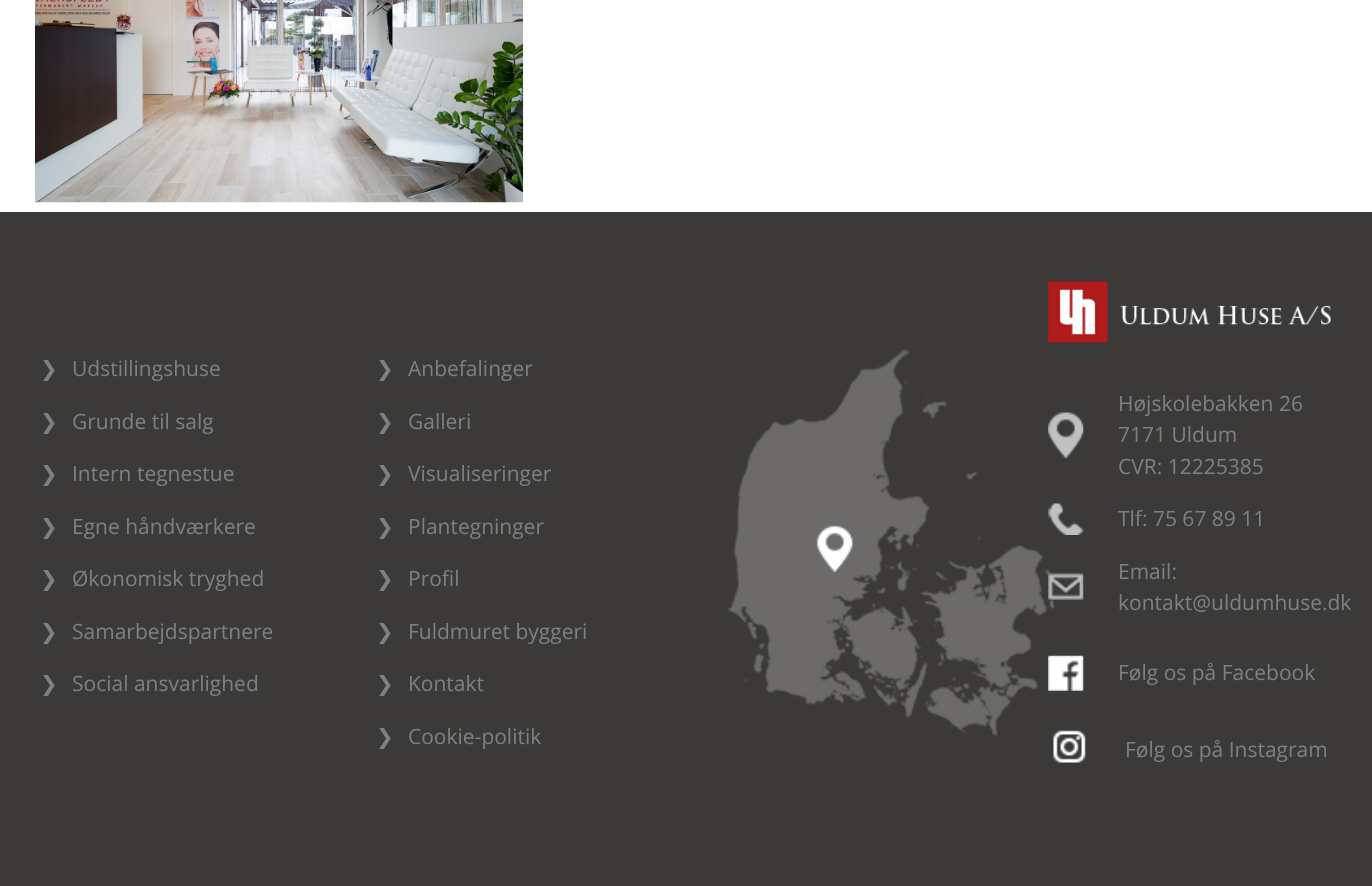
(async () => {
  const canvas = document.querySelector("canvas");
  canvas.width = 1372;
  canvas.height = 886;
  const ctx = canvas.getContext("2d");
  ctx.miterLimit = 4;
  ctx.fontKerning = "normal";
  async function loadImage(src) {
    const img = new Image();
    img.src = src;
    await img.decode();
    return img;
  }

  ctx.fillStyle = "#ffffff";
  ctx.fillRect(0, 0, 1372, 886);
  ctx.drawImage(await loadImage("img/1.png"), 35, 0, 489, 203);
  ctx.fillStyle = "#3b3a38";
  ctx.fillRect(0, 212, 1372, 674);
  ctx.drawImage(await loadImage("img/2.png"), 727, 349, 328, 388);
  ctx.drawImage(await loadImage("img/3.png"), 1048, 281, 283, 62);
  ctx.drawImage(await loadImage("img/4.png"), 1048, 412, 36, 46);
  ctx.drawImage(await loadImage("img/5.png"), 1048, 503, 36, 32);
  ctx.drawImage(await loadImage("img/6.png"), 1048, 573, 36, 27);
  ctx.drawImage(await loadImage("img/7.png"), 1048, 655, 36, 36);
  ctx.drawImage(await loadImage("img/8.png"), 1053, 730, 33, 33);
  ctx.font = "21px DejaVu Sans";
  ctx.fillStyle = "#808080";
  ctx.fillText("❯", 40, 376);
  ctx.font = "21px Open Sans";
  ctx.fillText("Udstillingshuse", 72, 376);
  ctx.font = "21px DejaVu Sans";
  ctx.fillText("❯", 40, 429);
  ctx.font = "21px Open Sans";
  ctx.fillText("Grunde til salg", 72, 429);
  ctx.font = "21px DejaVu Sans";
  ctx.fillText("❯", 40, 481);
  ctx.font = "21px Open Sans";
  ctx.fillText("Intern tegnestue", 72, 481);
  ctx.font = "21px DejaVu Sans";
  ctx.fillText("❯", 40, 534);
  ctx.font = "21px Open Sans";
  ctx.fillText("Egne håndværkere", 72, 534);
  ctx.font = "21px DejaVu Sans";
  ctx.fillText("❯", 40, 586);
  ctx.font = "21px Open Sans";
  ctx.fillText("Økonomisk tryghed", 72, 586);
  ctx.font = "21px DejaVu Sans";
  ctx.fillText("❯", 40, 639);
  ctx.font = "21px Open Sans";
  ctx.fillText("Samarbejdspartnere", 72, 639);
  ctx.font = "21px DejaVu Sans";
  ctx.fillText("❯", 40, 691);
  ctx.font = "21px Open Sans";
  ctx.fillText("Social ansvarlighed", 72, 691);
  ctx.font = "21px DejaVu Sans";
  ctx.fillText("❯", 376, 376);
  ctx.font = "21px Open Sans";
  ctx.fillText("Anbefalinger", 408, 376);
  ctx.font = "21px DejaVu Sans";
  ctx.fillText("❯", 376, 429);
  ctx.font = "21px Open Sans";
  ctx.fillText("Galleri", 408, 429);
  ctx.font = "21px DejaVu Sans";
  ctx.fillText("❯", 376, 481);
  ctx.font = "21px Open Sans";
  ctx.fillText("Visualiseringer", 408, 481);
  ctx.font = "21px DejaVu Sans";
  ctx.fillText("❯", 376, 534);
  ctx.font = "21px Open Sans";
  ctx.fillText("Plantegninger", 408, 534);
  ctx.font = "21px DejaVu Sans";
  ctx.fillText("❯", 376, 586);
  ctx.font = "21px Open Sans";
  ctx.fillText("Profil", 408, 586);
  ctx.font = "21px DejaVu Sans";
  ctx.fillText("❯", 376, 639);
  ctx.font = "21px Open Sans";
  ctx.fillText("Fuldmuret byggeri", 408, 639);
  ctx.font = "21px DejaVu Sans";
  ctx.fillText("❯", 376, 691);
  ctx.font = "21px Open Sans";
  ctx.fillText("Kontakt", 408, 691);
  ctx.font = "21px DejaVu Sans";
  ctx.fillText("❯", 376, 744);
  ctx.font = "21px Open Sans";
  for (const [text, x, y] of [
    ["Cookie-politik", 408, 744],
    ["Højskolebakken 26", 1118, 411],
    ["7171 Uldum", 1118, 442],
    ["CVR: 12225385", 1118, 474],
    ["Tlf: 75 67 89 11", 1118, 526],
    ["Email:", 1118, 579],
    ["kontakt@uldumhuse.dk", 1118, 610],
    ["Følg os på Facebook", 1118, 680],
    ["Følg os på Instagram", 1125, 757],
  ]) {
    ctx.fillText(text, x, y);
  }
})();
